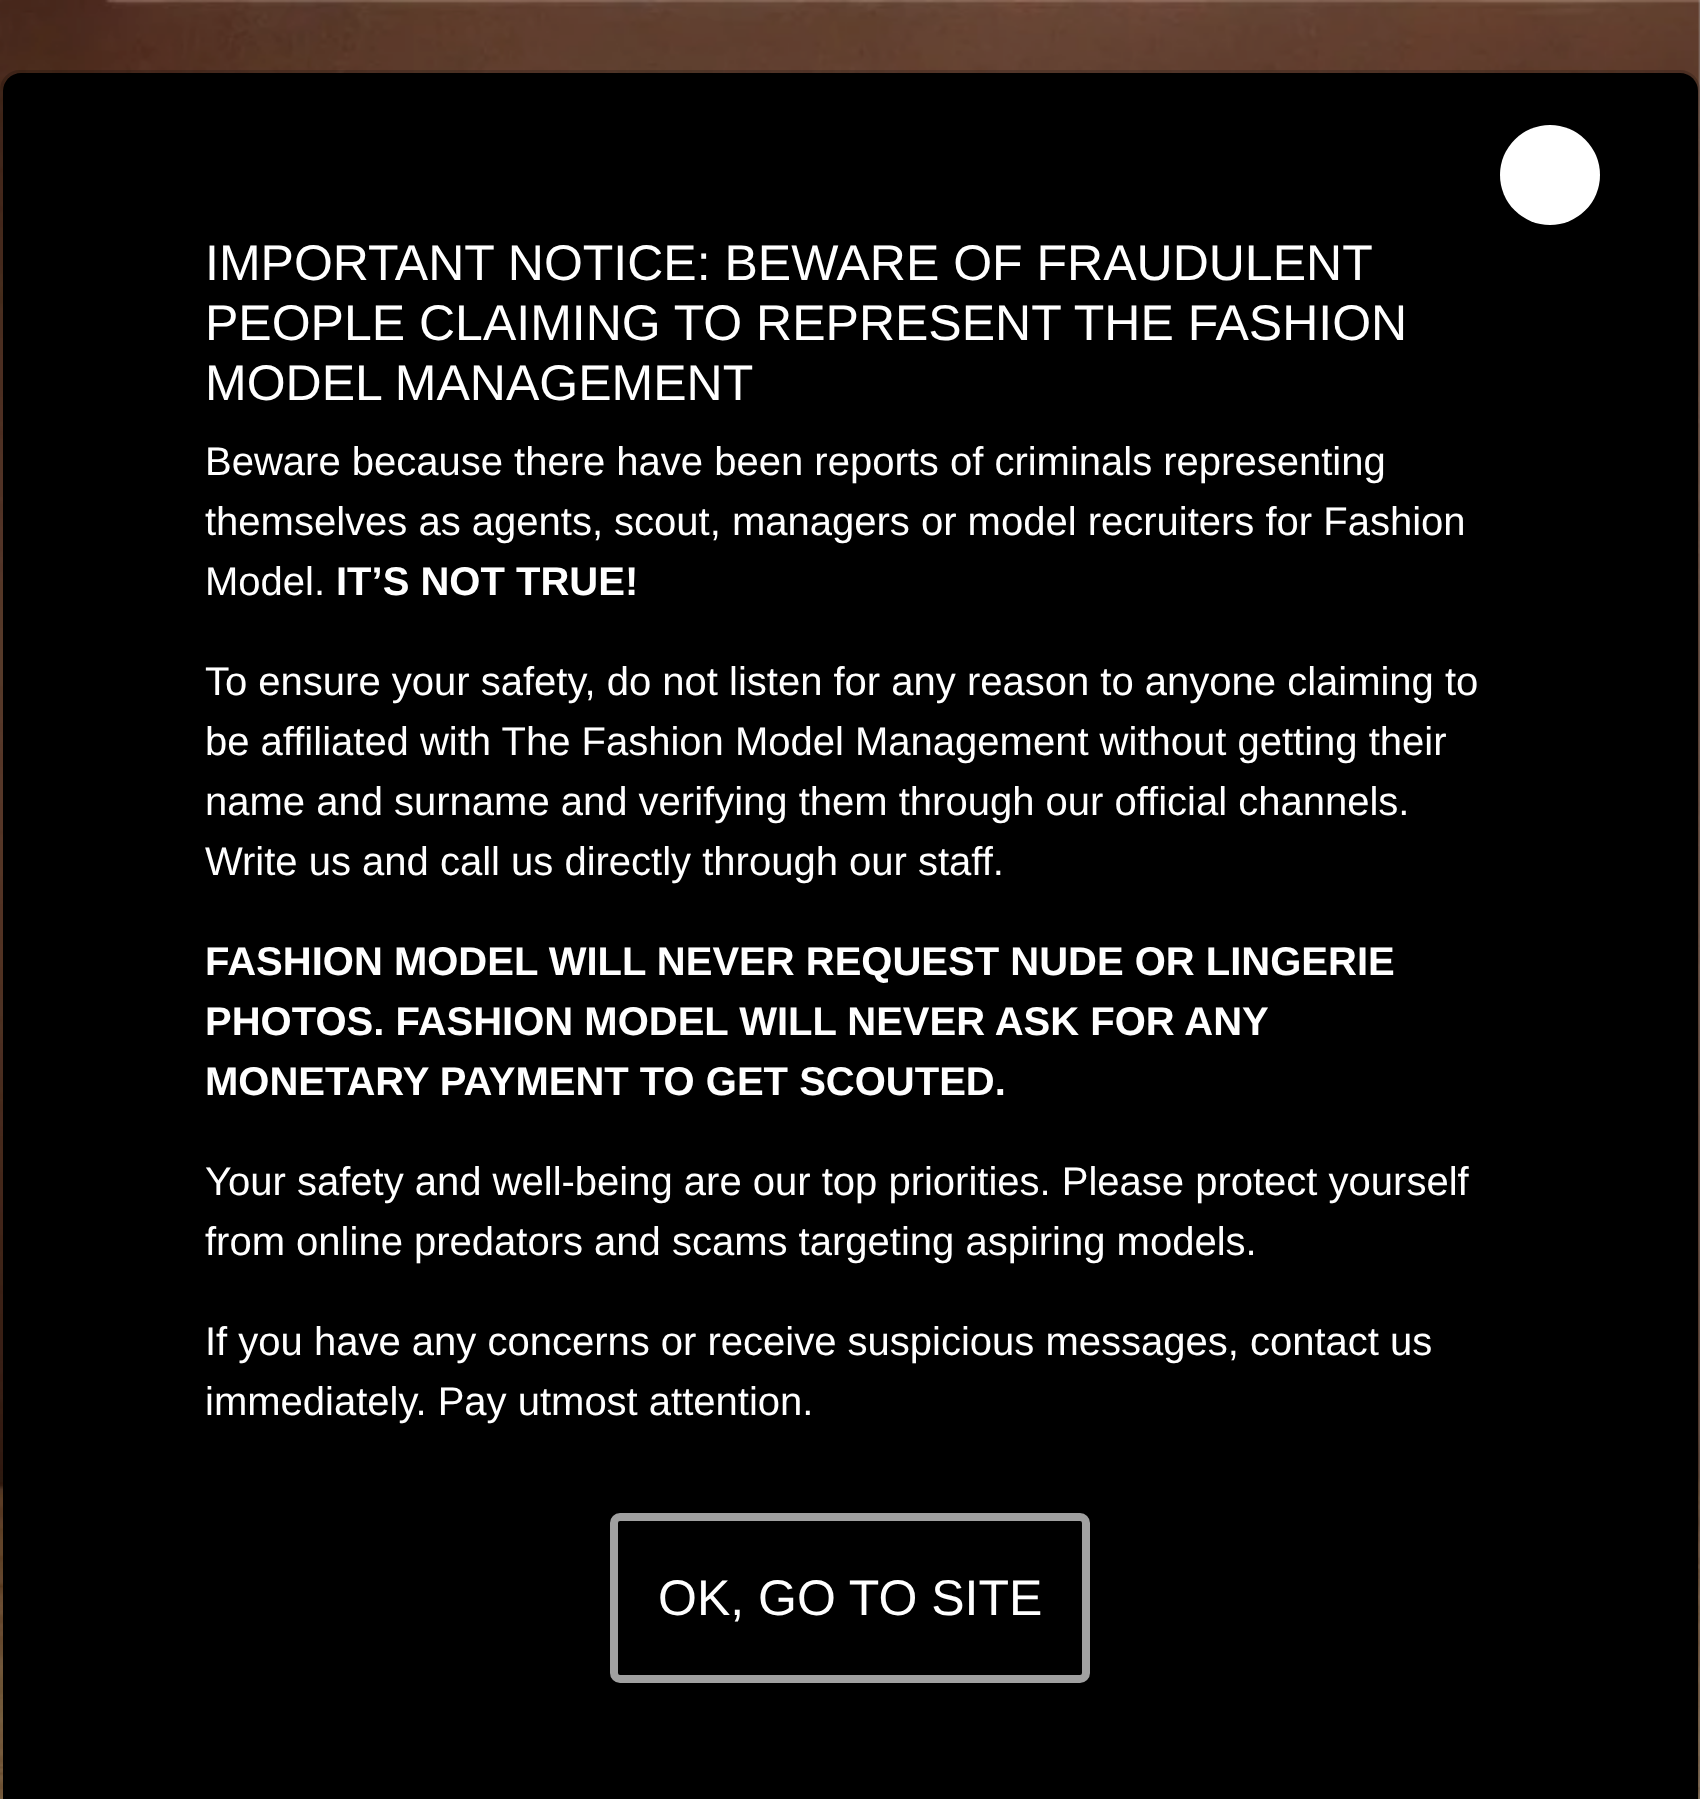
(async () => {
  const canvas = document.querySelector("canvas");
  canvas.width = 1700;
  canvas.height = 1799;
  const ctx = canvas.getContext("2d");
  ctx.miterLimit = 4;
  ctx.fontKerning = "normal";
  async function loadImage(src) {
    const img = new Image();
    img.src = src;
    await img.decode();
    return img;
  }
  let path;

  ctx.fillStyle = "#b3b3b3";
  ctx.fillRect(0, 0, 1700, 1799);
  ctx.drawImage(await loadImage("img/1.png"), 0, 0, 1700, 1799);
  ctx.fillStyle = "#000000";
  path = new Path2D("M21 73H1680C1690 73 1698 81 1698 91V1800H3V91C3 81 11 73 21 73Z");
  ctx.fill(path);
  ctx.beginPath();
  ctx.roundRect(1.5, 71.5, 1697, 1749, 18.5);
  ctx.strokeStyle = "rgba(0, 0, 0, 0.18)";
  ctx.lineWidth = 3;
  ctx.stroke();
  ctx.fillStyle = "#ffffff";
  ctx.beginPath();
  ctx.arc(1550, 175, 50, 0, Math.PI * 2);
  ctx.fill();
  ctx.beginPath();
  ctx.roundRect(614, 1517, 472, 162, 6);
  ctx.strokeStyle = "#a0a0a0";
  ctx.lineWidth = 8;
  ctx.stroke();
  ctx.font = "50px Liberation Sans";
  for (const [text, x, y] of [
    ["IMPORTANT NOTICE: BEWARE OF FRAUDULENT", 205, 280],
    ["PEOPLE CLAIMING TO REPRESENT THE FASHION", 205, 340],
    ["MODEL MANAGEMENT", 205, 400],
  ]) {
    ctx.fillText(text, x, y);
  }
  ctx.font = "40px Liberation Sans";
  for (const [text, x, y] of [
    ["Beware because there have been reports of criminals representing", 205, 475],
    ["themselves as agents, scout, managers or model recruiters for Fashion", 205, 535],
    ["Model.", 205, 595],
  ]) {
    ctx.fillText(text, x, y);
  }
  ctx.font = "bold 40px Liberation Sans";
  ctx.fillText("IT’S NOT TRUE!", 336, 595);
  ctx.font = "40px Liberation Sans";
  for (const [text, x, y] of [
    ["To ensure your safety, do not listen for any reason to anyone claiming to", 205, 695],
    ["be affiliated with The Fashion Model Management without getting their", 205, 755],
    ["name and surname and verifying them through our official channels.", 205, 815],
    ["Write us and call us directly through our staff.", 205, 875],
  ]) {
    ctx.fillText(text, x, y);
  }
  ctx.font = "bold 40px Liberation Sans";
  for (const [text, x, y] of [
    ["FASHION MODEL WILL NEVER REQUEST NUDE OR LINGERIE", 205, 975],
    ["PHOTOS. FASHION MODEL WILL NEVER ASK FOR ANY", 205, 1035],
    ["MONETARY PAYMENT TO GET SCOUTED.", 205, 1095],
  ]) {
    ctx.fillText(text, x, y);
  }
  ctx.font = "40px Liberation Sans";
  for (const [text, x, y] of [
    ["Your safety and well-being are our top priorities. Please protect yourself", 205, 1195],
    ["from online predators and scams targeting aspiring models.", 205, 1255],
    ["If you have any concerns or receive suspicious messages, contact us", 205, 1355],
    ["immediately. Pay utmost attention.", 205, 1415],
  ]) {
    ctx.fillText(text, x, y);
  }
  ctx.font = "50px Liberation Sans";
  ctx.fillText("OK, GO TO SITE", 658, 1615);
})();
